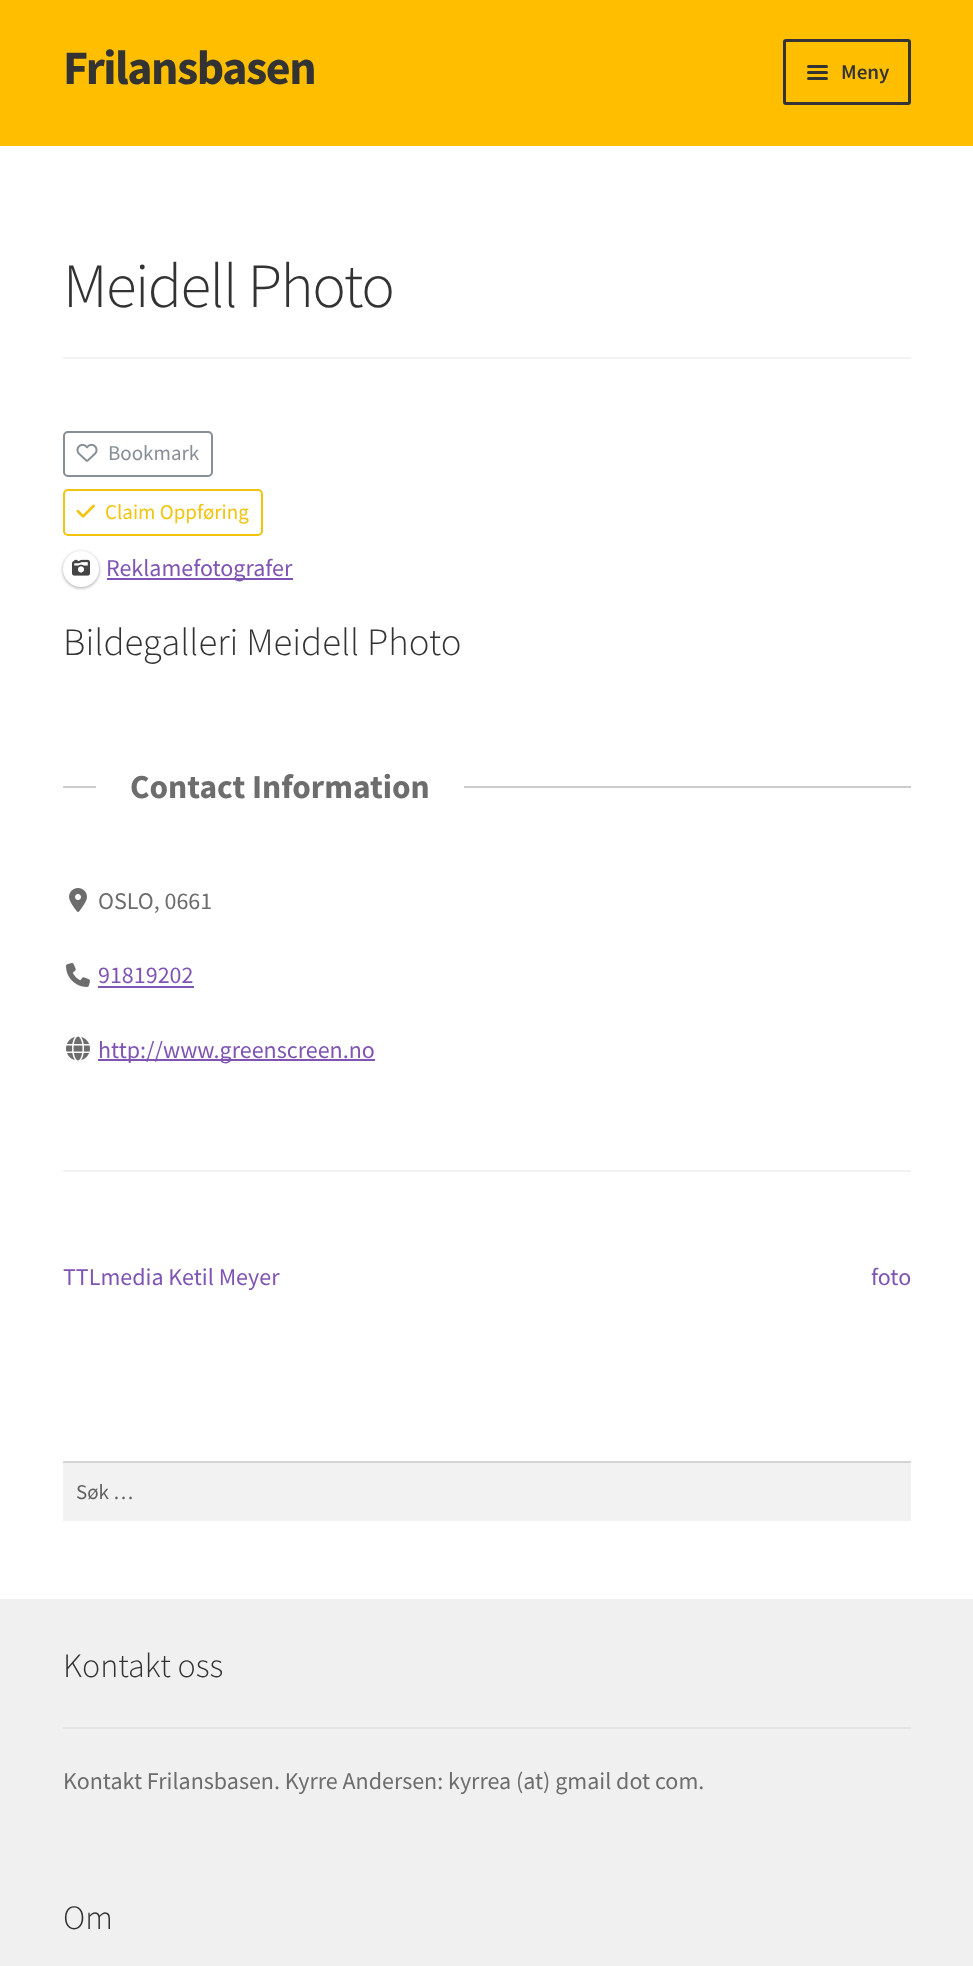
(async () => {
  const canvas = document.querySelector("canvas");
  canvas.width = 973;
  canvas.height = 1966;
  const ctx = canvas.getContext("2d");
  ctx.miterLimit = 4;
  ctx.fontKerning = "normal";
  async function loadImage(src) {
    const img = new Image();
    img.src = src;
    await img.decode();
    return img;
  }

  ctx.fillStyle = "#ffffff";
  ctx.fillRect(0, 0, 973, 1966);
  ctx.fillStyle = "#ffbf00";
  ctx.fillRect(0, 0, 973, 146);
  ctx.beginPath();
  ctx.roundRect(784.5, 40.5, 125, 63, 1.5);
  ctx.strokeStyle = "#333333";
  ctx.lineWidth = 3;
  ctx.stroke();
  ctx.fillStyle = "#333333";
  ctx.beginPath();
  ctx.roundRect(807, 65, 21, 3, 1.5);
  ctx.fill();
  ctx.beginPath();
  ctx.roundRect(807, 71, 21, 3, 1.5);
  ctx.fill();
  ctx.beginPath();
  ctx.roundRect(807, 77, 21, 3, 1.5);
  ctx.fill();
  ctx.fillStyle = "#f2f2f2";
  ctx.fillRect(63, 357, 848, 2);
  ctx.beginPath();
  ctx.roundRect(64, 432, 148, 44, 4);
  ctx.strokeStyle = "#868e96";
  ctx.lineWidth = 2;
  ctx.stroke();
  ctx.drawImage(await loadImage("img/1.png"), 76, 443, 22, 19);
  ctx.beginPath();
  ctx.roundRect(64, 490, 198, 45, 4);
  ctx.strokeStyle = "#f1c40f";
  ctx.stroke();
  ctx.drawImage(await loadImage("img/2.png"), 76, 504, 19, 14);
  ctx.fillStyle = "rgba(0, 0, 0, 0.24)";
  ctx.filter = "blur(1.5px)";
  ctx.beginPath();
  ctx.roundRect(63, 552, 36, 36, 18);
  ctx.fill();
  ctx.filter = "none";
  ctx.fillStyle = "rgba(0, 0, 0, 0.12)";
  ctx.filter = "blur(2px)";
  ctx.beginPath();
  ctx.roundRect(63, 552, 36, 36, 18);
  ctx.fill();
  ctx.filter = "none";
  ctx.fillStyle = "#ffffff";
  ctx.beginPath();
  ctx.arc(81, 569, 18, 0, Math.PI * 2);
  ctx.fill();
  ctx.drawImage(await loadImage("img/3.png"), 72, 559, 18, 17);
  for (const [x, y, w, h, color] of [
    [107, 578, 186, 2, "#7f54b3"],
    [63, 786, 848, 2, "#cccccc"],
    [96, 786, 368, 2, "#ffffff"],
  ]) {
    ctx.fillStyle = color;
    ctx.fillRect(x, y, w, h);
  }
  ctx.drawImage(await loadImage("img/4.png"), 69, 888, 18, 24);
  ctx.drawImage(await loadImage("img/5.png"), 66, 963, 24, 24);
  ctx.fillStyle = "#7f54b3";
  ctx.fillRect(98, 986, 96, 2);
  ctx.drawImage(await loadImage("img/6.png"), 66, 1036, 24, 25);
  for (const [x, y, w, h, color] of [
    [98, 1059, 277, 2, "#7f54b3"],
    [63, 1170, 848, 2, "#f2f2f2"],
    [63, 1463, 848, 58, "#f2f2f2"],
    [63, 1461, 848, 2, "#d4d4d4"],
    [0, 1599, 973, 367, "#f0f0f0"],
    [63, 1727, 848, 2, "#e4e4e4"],
  ]) {
    ctx.fillStyle = color;
    ctx.fillRect(x, y, w, h);
  }
  ctx.letterSpacing = "-1.5px";
  ctx.font = "bold 48px Source Sans Pro";
  ctx.fillStyle = "#333333";
  ctx.fillText("Frilansbasen", 63, 84);
  ctx.letterSpacing = "0px";
  ctx.font = "600 21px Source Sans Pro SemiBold";
  ctx.fillText("Meny", 841, 79);
  ctx.letterSpacing = "-1.5px";
  ctx.font = "300 63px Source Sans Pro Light";
  ctx.fillText("Meidell Photo", 63, 307);
  ctx.letterSpacing = "0px";
  ctx.font = "21px Source Sans Pro";
  ctx.fillStyle = "#868e96";
  ctx.fillText("Bookmark", 108, 460);
  ctx.fillStyle = "#f1c40f";
  ctx.fillText("Claim Oppføring", 105, 519);
  ctx.font = "24px Source Sans Pro";
  ctx.fillStyle = "#7f54b3";
  ctx.fillText("Reklamefotografer", 106, 576);
  ctx.font = "300 38.75px Source Sans Pro Light";
  ctx.fillStyle = "#333333";
  ctx.fillText("Bildegalleri Meidell Photo", 63, 655);
  ctx.font = "bold 33.5px Source Sans Pro";
  ctx.fillStyle = "#6d6d6d";
  ctx.fillText("Contact Information", 130, 798);
  ctx.font = "24px Source Sans Pro";
  ctx.fillText("OSLO, 0661", 98, 909);
  ctx.fillStyle = "#7f54b3";
  for (const [text, x, y] of [
    ["91819202", 98, 983],
    ["http://www.greenscreen.no", 98, 1058],
    ["TTLmedia Ketil Meyer", 63, 1285],
    ["foto", 871, 1285],
  ]) {
    ctx.fillText(text, x, y);
  }
  ctx.font = "21px Source Sans Pro";
  ctx.fillStyle = "#616161";
  ctx.fillText("Søk …", 76, 1499);
  ctx.font = "300 34px Source Sans Pro Light";
  ctx.fillStyle = "#333333";
  ctx.fillText("Kontakt oss", 63, 1677);
  ctx.font = "24px Source Sans Pro";
  ctx.fillStyle = "#6d6d6d";
  ctx.fillText("Kontakt Frilansbasen. Kyrre Andersen: kyrrea (at) gmail dot com.", 63, 1789);
  ctx.font = "300 34px Source Sans Pro Light";
  ctx.fillStyle = "#333333";
  ctx.fillText("Om", 63, 1929);
})();
